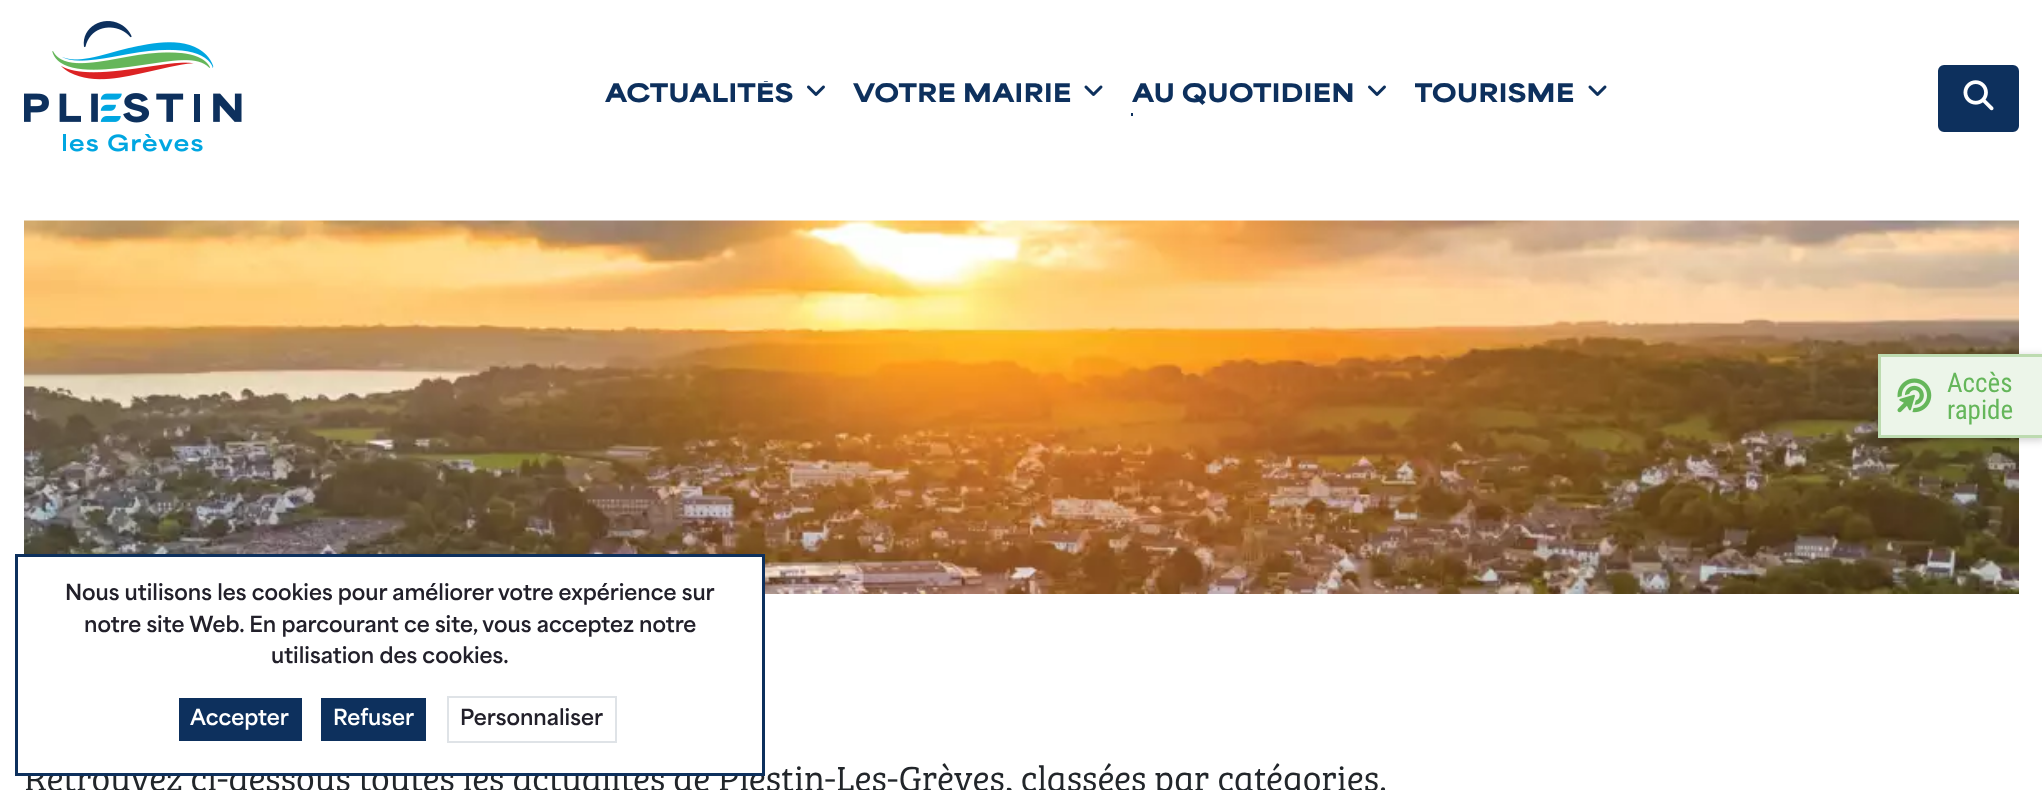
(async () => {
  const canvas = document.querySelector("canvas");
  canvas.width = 2042;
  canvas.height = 790;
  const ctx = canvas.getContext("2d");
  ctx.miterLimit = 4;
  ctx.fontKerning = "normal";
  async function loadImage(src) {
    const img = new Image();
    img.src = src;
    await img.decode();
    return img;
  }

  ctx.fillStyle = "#ffffff";
  ctx.fillRect(0, 0, 2042, 790);
  ctx.drawImage(await loadImage("img/1.png"), 24, 21, 218, 131);
  ctx.drawImage(await loadImage("img/2.png"), 807, 85, 18, 11);
  ctx.drawImage(await loadImage("img/3.png"), 1084, 85, 19, 11);
  ctx.fillStyle = "#0d305d";
  ctx.fillRect(1131, 113, 2, 3);
  ctx.drawImage(await loadImage("img/2.png"), 1368, 85, 18, 11);
  ctx.drawImage(await loadImage("img/3.png"), 1588, 85, 19, 11);
  ctx.beginPath();
  ctx.roundRect(1939, 66, 79, 65, 5);
  ctx.fill();
  ctx.strokeStyle = "#0d305d";
  ctx.lineWidth = 2;
  ctx.stroke();
  ctx.drawImage(await loadImage("img/4.png"), 1963, 80, 31, 31);
  ctx.drawImage(await loadImage("img/6.png"), 24, 220, 1995, 374);
  ctx.fillStyle = "rgba(0, 0, 0, 0.2)";
  ctx.filter = "blur(4px)";
  ctx.beginPath();
  ctx.rect(1880, 356, 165, 84);
  ctx.fill();
  ctx.filter = "none";
  for (const [x, y, w, h, color] of [
    [1881, 357, 161, 78, "#ecf5e9"],
    [1878, 354, 164, 3, "#bddbb0"],
    [1878, 435, 164, 3, "#bddbb0"],
    [1878, 354, 3, 84, "#bddbb0"],
  ]) {
    ctx.fillStyle = color;
    ctx.fillRect(x, y, w, h);
  }
  ctx.drawImage(await loadImage("img/5.png"), 1897, 378, 35, 35);
  ctx.save();
  ctx.beginPath();
  ctx.rect(605, 81, 189, 35);
  ctx.clip();
  ctx.font = "900 24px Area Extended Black";
  ctx.fillStyle = "#0d305d";
  ctx.fillText("ACTUALITÉS", 605, 102);
  ctx.restore();
  ctx.font = "900 24px Area Extended Black";
  ctx.fillStyle = "#0d305d";
  ctx.fillText("VOTRE MAIRIE", 853, 102);
  ctx.fillText("AU QUOTIDIEN", 1132, 102);
  ctx.save();
  ctx.beginPath();
  ctx.rect(1415, 81, 160, 35);
  ctx.clip();
  ctx.fillText("TOURISME", 1414, 102);
  ctx.restore();
  ctx.font = "27px Roboto Condensed";
  ctx.fillStyle = "#65b65a";
  ctx.fillText("Accès", 1947, 392);
  ctx.fillText("rapide", 1947, 419);
  ctx.font = "300 36px Bree Serif";
  ctx.fillStyle = "#22262a";
  ctx.fillText("Retrouvez ci-dessous toutes les actualités de Plestin-Les-Grèves, classées par catégories.", 24, 791);
  ctx.fillStyle = "#ffffff";
  ctx.fillRect(24, 557, 738, 216);
  ctx.lineWidth = 3;
  ctx.strokeRect(16.5, 555.5, 747, 219);
  ctx.strokeStyle = "#dfe3e7";
  ctx.lineWidth = 2;
  ctx.strokeRect(448, 697, 168, 45);
  ctx.font = "bold 21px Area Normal";
  ctx.fillStyle = "#22202a";
  ctx.fillText("Personnaliser", 460, 725);
  ctx.fillStyle = "#0d305d";
  ctx.fillRect(321, 698, 105, 43);
  ctx.fillStyle = "#ffffff";
  ctx.fillText("Refuser", 333, 725);
  ctx.fillStyle = "#0d305d";
  ctx.fillRect(179, 698, 123, 43);
  ctx.fillStyle = "#ffffff";
  ctx.fillText("Accepter", 190, 725);
  ctx.fillStyle = "#22202a";
  for (const [text, x, y] of [
    ["utilisation des cookies.", 271, 663],
    ["notre site Web. En parcourant ce site, vous acceptez notre", 84, 632],
    ["Nous utilisons les cookies pour améliorer votre expérience sur", 65, 600],
  ]) {
    ctx.fillText(text, x, y);
  }
})();
